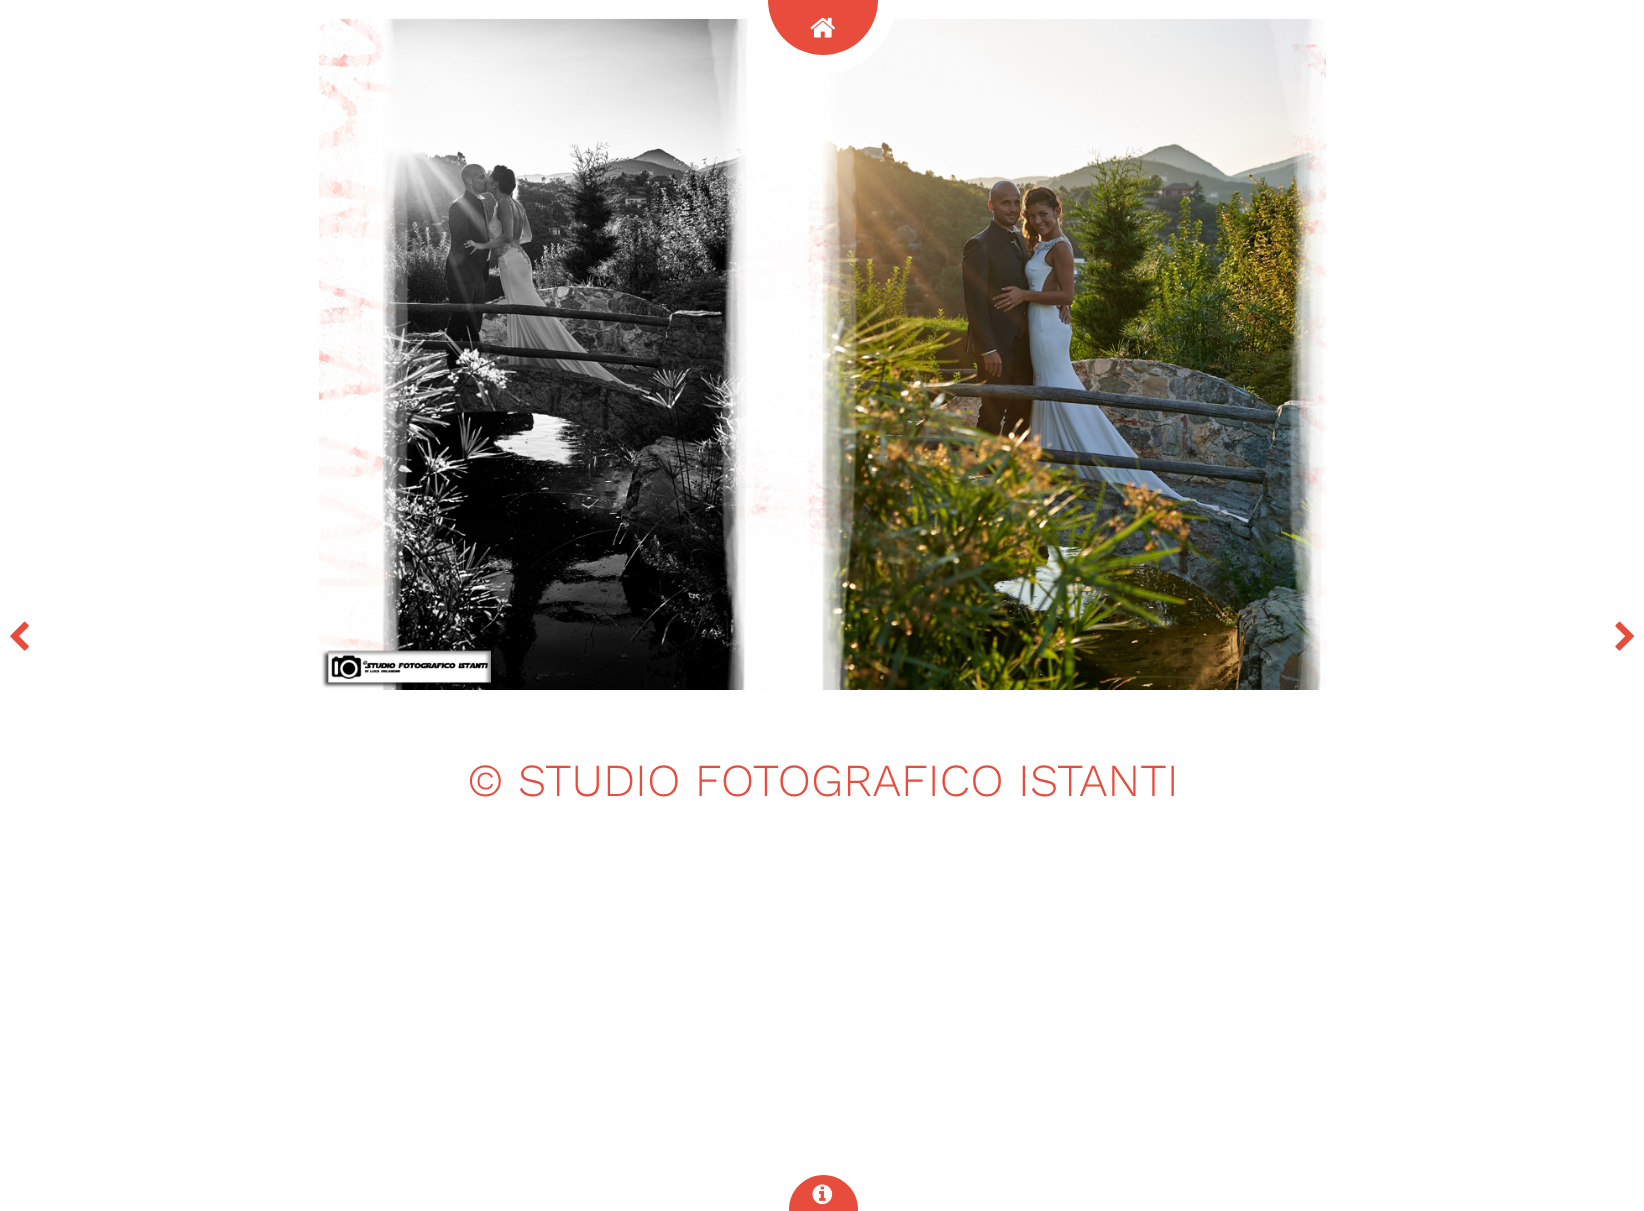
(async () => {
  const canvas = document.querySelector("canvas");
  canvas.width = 1644;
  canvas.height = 1211;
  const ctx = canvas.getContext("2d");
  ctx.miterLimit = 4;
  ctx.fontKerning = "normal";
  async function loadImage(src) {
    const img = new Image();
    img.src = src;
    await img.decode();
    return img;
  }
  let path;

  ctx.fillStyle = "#ffffff";
  ctx.fillRect(0, 0, 1644, 1211);
  ctx.drawImage(await loadImage("img/4.png"), 318, 18, 1008, 672);
  ctx.beginPath();
  ctx.roundRect(758, -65, 129, 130, 64.5);
  ctx.strokeStyle = "#ffffff";
  ctx.lineWidth = 18;
  ctx.stroke();
  ctx.fillStyle = "#e74c3c";
  ctx.beginPath();
  ctx.arc(823, 0, 55, 0, Math.PI * 2);
  ctx.fill();
  ctx.drawImage(await loadImage("img/1.png"), 810, 17, 26, 21);
  ctx.drawImage(await loadImage("img/2.png"), 10, 621, 19, 30);
  ctx.drawImage(await loadImage("img/3.png"), 1615, 621, 19, 30);
  path = new Path2D("M823.5 1175C842.5 1175 858 1190.5 858 1209.5V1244H789V1209.5C789 1190.5 804.5 1175 823.5 1175Z");
  ctx.fill(path);
  ctx.drawImage(await loadImage("img/5.png"), 812, 1184, 21, 21);
  ctx.font = "300 45.8px Work Sans";
  ctx.fillText("© STUDIO FOTOGRAFICO ISTANTI", 467, 796);
})();
